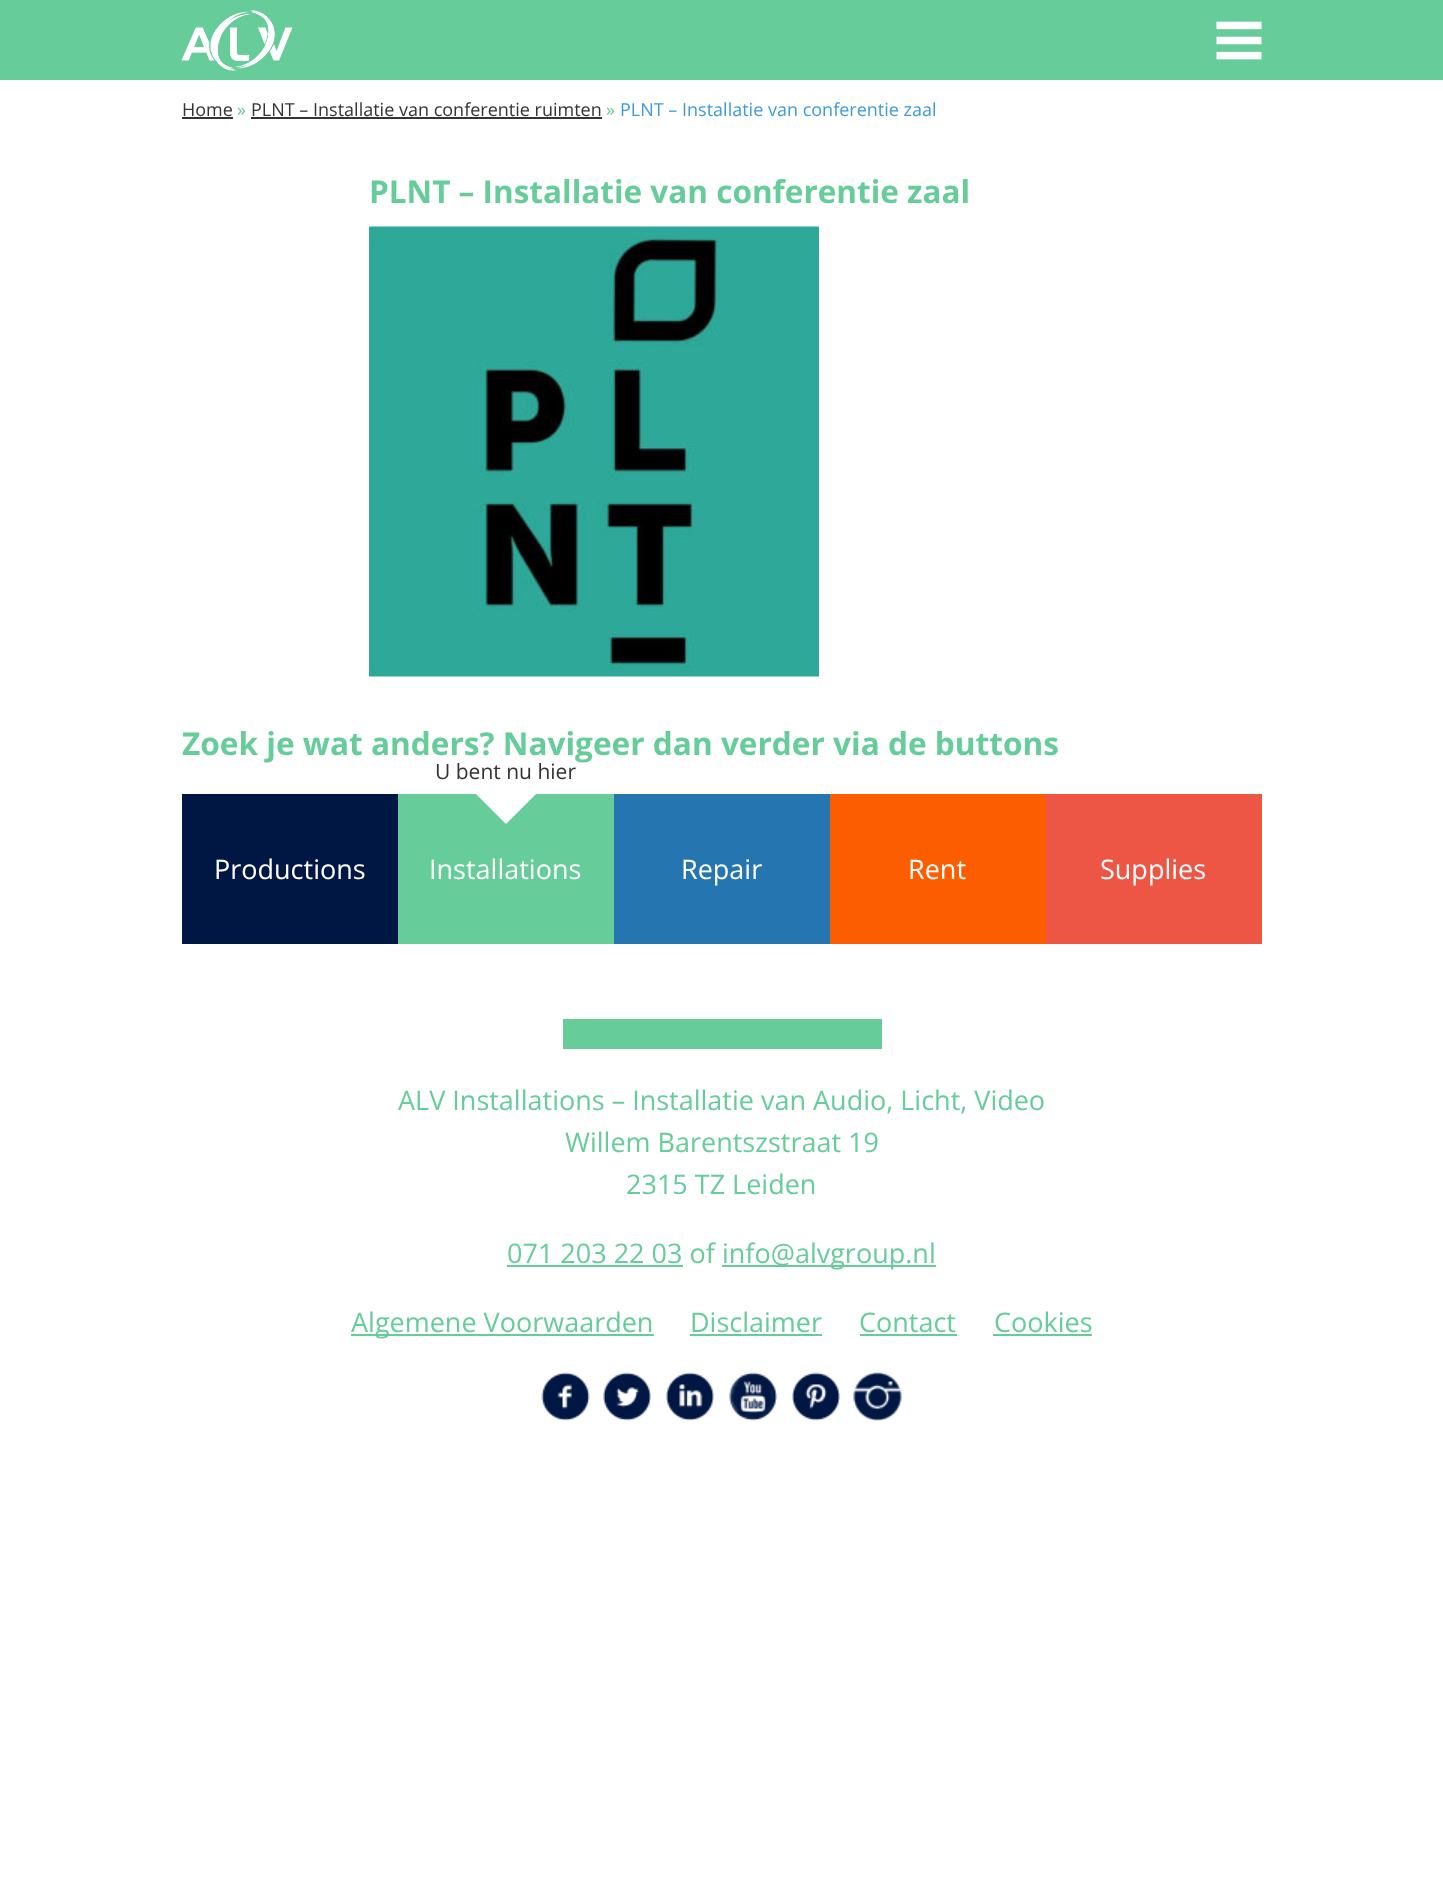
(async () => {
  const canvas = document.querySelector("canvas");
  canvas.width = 1443;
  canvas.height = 1880;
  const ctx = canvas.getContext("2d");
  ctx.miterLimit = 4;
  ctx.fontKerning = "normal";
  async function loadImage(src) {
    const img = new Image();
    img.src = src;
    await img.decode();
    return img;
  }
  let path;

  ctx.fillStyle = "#ffffff";
  ctx.fillRect(0, 0, 1443, 1880);
  ctx.fillStyle = "#66cc9a";
  ctx.fillRect(0, 0, 1443, 80);
  ctx.drawImage(await loadImage("img/1.png"), 181, 10, 112, 61);
  ctx.drawImage(await loadImage("img/2.png"), 1216, 21, 46, 39);
  ctx.fillStyle = "#333333";
  ctx.fillRect(182, 117, 51, 2);
  ctx.fillRect(251, 117, 351, 2);
  ctx.drawImage(await loadImage("img/3.png"), 369, 226, 450, 451);
  ctx.fillStyle = "#001743";
  ctx.fillRect(182, 794, 216, 150);
  ctx.fillStyle = "#66cc9a";
  ctx.fillRect(398, 794, 216, 150);
  ctx.fillStyle = "#ffffff";
  path = new Path2D("M476 794H536L506 824Z");
  ctx.fill(path);
  for (const [x, y, w, h, color] of [
    [614, 794, 216, 150, "#2575b1"],
    [830, 794, 216, 150, "#fc5d00"],
    [1046, 794, 216, 150, "#ed5545"],
    [563, 1019, 319, 30, "#66cc9a"],
    [507, 1265, 176, 2, "#66cc9a"],
    [722, 1265, 214, 2, "#66cc9a"],
    [351, 1334, 303, 2, "#66cc9a"],
    [690, 1334, 132, 2, "#66cc9a"],
    [860, 1334, 97, 2, "#66cc9a"],
    [993, 1334, 99, 2, "#66cc9a"],
  ]) {
    ctx.fillStyle = color;
    ctx.fillRect(x, y, w, h);
  }
  ctx.drawImage(await loadImage("img/4.png"), 541, 1372, 49, 49);
  ctx.drawImage(await loadImage("img/5.png"), 603, 1372, 48, 49);
  ctx.drawImage(await loadImage("img/6.png"), 666, 1372, 48, 49);
  ctx.drawImage(await loadImage("img/7.png"), 729, 1372, 48, 49);
  ctx.drawImage(await loadImage("img/8.png"), 792, 1372, 48, 49);
  ctx.drawImage(await loadImage("img/9.png"), 853, 1372, 49, 49);
  ctx.font = "18px Open Sans";
  ctx.fillStyle = "#333333";
  ctx.fillText("Home", 182, 116);
  ctx.fillStyle = "#66cc9a";
  ctx.fillText("»", 237, 116);
  ctx.fillStyle = "#333333";
  ctx.fillText("PLNT – Installatie van conferentie ruimten", 251, 116);
  ctx.fillStyle = "#66cc9a";
  ctx.fillText("»", 606, 116);
  ctx.fillStyle = "#3d9cd6";
  ctx.fillText("PLNT – Installatie van conferentie zaal", 620, 116);
  ctx.font = "bold 31.5px Open Sans";
  ctx.fillStyle = "#66cc9a";
  ctx.fillText("PLNT – Installatie van conferentie zaal", 369, 203);
  ctx.font = "bold 31.6px Open Sans";
  ctx.fillText("Zoek je wat anders? Navigeer dan verder via de buttons", 182, 755);
  ctx.font = "27px Open Sans";
  ctx.fillStyle = "#ffffff";
  ctx.fillText("Productions", 214, 879);
  ctx.font = "21px Open Sans";
  ctx.fillStyle = "#333333";
  ctx.fillText("U bent nu hier", 435, 779);
  ctx.font = "27px Open Sans";
  ctx.fillStyle = "#ffffff";
  for (const [text, x, y] of [
    ["Installations", 429, 879],
    ["Repair", 681, 879],
    ["Rent", 908, 879],
    ["Supplies", 1100, 879],
  ]) {
    ctx.fillText(text, x, y);
  }
  ctx.fillStyle = "#66cc9a";
  for (const [text, x, y] of [
    ["ALV Installations – Installatie van Audio, Licht, Video", 398, 1110],
    ["Willem Barentszstraat 19", 565, 1152],
    ["2315 TZ Leiden", 626, 1194],
    ["071 203 22 03 of", 507, 1263],
    ["info@alvgroup.nl", 722, 1263],
    ["Algemene Voorwaarden", 351, 1332],
    ["Disclaimer", 690, 1332],
    ["Contact", 859, 1332],
    ["Cookies", 994, 1332],
  ]) {
    ctx.fillText(text, x, y);
  }
})();
